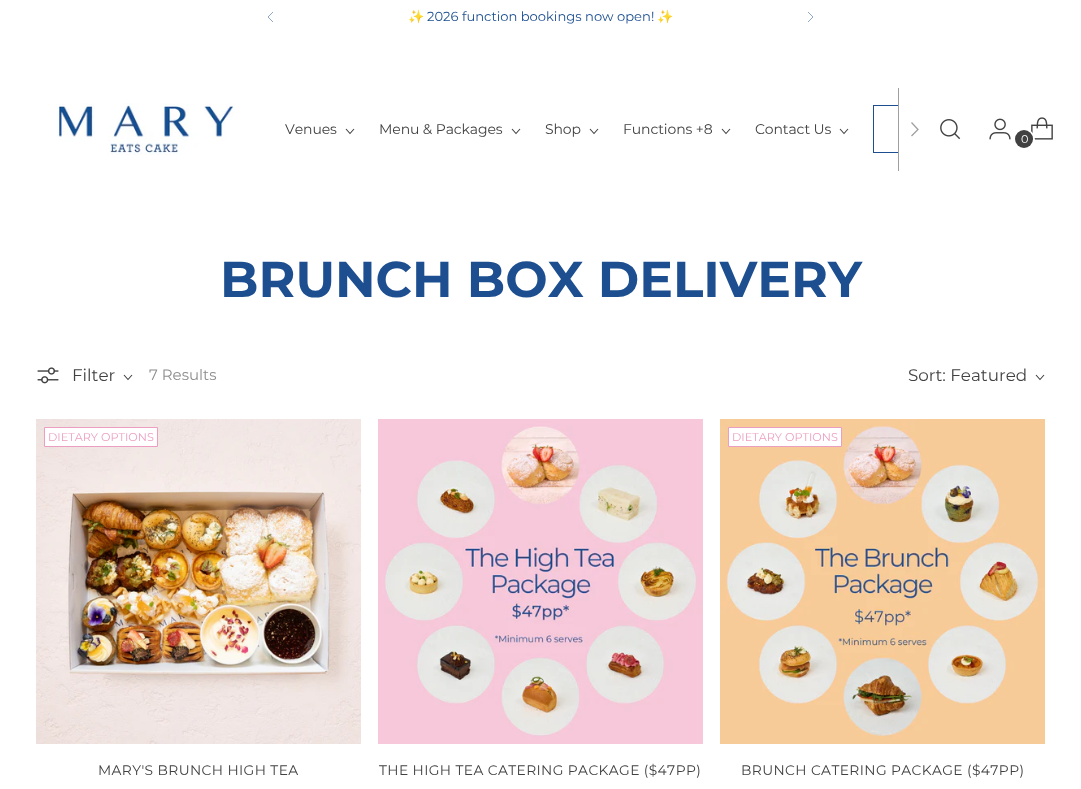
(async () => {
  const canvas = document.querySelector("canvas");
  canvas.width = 1081;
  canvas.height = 789;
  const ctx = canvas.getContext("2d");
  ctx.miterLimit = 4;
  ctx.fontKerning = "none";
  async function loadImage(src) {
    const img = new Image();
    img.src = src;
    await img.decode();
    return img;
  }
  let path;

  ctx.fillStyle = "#ffffff";
  ctx.fillRect(0, 0, 1081, 789);
  path = new Path2D("M273 12L268 17L273 22");
  ctx.strokeStyle = "#8ea7c8";
  ctx.stroke(path);
  path = new Path2D("M808 22L813 17L808 12");
  ctx.stroke(path);
  ctx.drawImage(await loadImage("img/1.png"), 57, 103, 177, 52);
  path = new Path2D("M346 129L350 133.5L354 129");
  ctx.strokeStyle = "#414141";
  ctx.lineWidth = 1.1;
  ctx.stroke(path);
  path = new Path2D("M512 129L516 133.5L520 129");
  ctx.stroke(path);
  path = new Path2D("M590 129L594 133.5L598 129");
  ctx.stroke(path);
  path = new Path2D("M722 129L726 133.5L730 129");
  ctx.stroke(path);
  path = new Path2D("M840 129L844 133.5L848 129");
  ctx.stroke(path);
  ctx.fillStyle = "#a0a0a0";
  ctx.fillRect(898, 88, 1, 83);
  ctx.save();
  ctx.beginPath();
  ctx.rect(284, 46, 614, 166);
  ctx.clip();
  ctx.strokeStyle = "#1d4f90";
  ctx.lineWidth = 1;
  ctx.strokeRect(873.5, 105.5, 133, 47);
  ctx.restore();
  path = new Path2D("M911.5 136L918 129.5L911.5 122.5");
  ctx.strokeStyle = "#a0a0a0";
  ctx.lineWidth = 1.3;
  ctx.stroke(path);
  ctx.drawImage(await loadImage("img/2.png"), 940, 119, 21, 21);
  ctx.drawImage(await loadImage("img/3.png"), 989, 118, 22, 22);
  ctx.drawImage(await loadImage("img/4.png"), 1031, 117, 22, 23);
  ctx.beginPath();
  ctx.arc(1024.5, 139.5, 9.5, 0, Math.PI * 2);
  ctx.strokeStyle = "#ffffff";
  ctx.lineWidth = 2;
  ctx.stroke();
  ctx.fillStyle = "#414141";
  ctx.beginPath();
  ctx.arc(1024, 139, 9, 0, Math.PI * 2);
  ctx.fill();
  ctx.drawImage(await loadImage("img/5.png"), 37, 367, 22, 17);
  path = new Path2D("M124 375L128 379.5L132 375");
  ctx.strokeStyle = "#414141";
  ctx.lineWidth = 1.1;
  ctx.stroke(path);
  path = new Path2D("M1036 375L1040 379.5L1044 375");
  ctx.stroke(path);
  ctx.drawImage(await loadImage("img/6.png"), 36, 419, 325, 325);
  ctx.fillStyle = "#ffffff";
  ctx.beginPath();
  ctx.rect(44.5, 427.5, 113, 19);
  ctx.fill();
  ctx.strokeStyle = "#ec9ec0";
  ctx.lineWidth = 1;
  ctx.stroke();
  ctx.drawImage(await loadImage("img/7.png"), 378, 419, 325, 325);
  ctx.drawImage(await loadImage("img/8.png"), 720, 419, 325, 325);
  ctx.beginPath();
  ctx.rect(728.5, 427.5, 113, 19);
  ctx.fill();
  ctx.stroke();
  ctx.font = "13.1px Noto Color Emoji";
  ctx.fillStyle = "#1d4f90";
  ctx.fillText("✨", 408, 21);
  ctx.font = "13.1px Montserrat";
  ctx.fillText("2026 function bookings now open!", 427, 21);
  ctx.font = "13.1px Noto Color Emoji";
  ctx.fillText("✨", 657, 21);
  ctx.letterSpacing = "-0.1px";
  ctx.font = "14px Montserrat";
  ctx.fillStyle = "#414141";
  for (const [text, x, y] of [
    ["Venues", 285, 134],
    ["Menu & Packages", 379, 134],
    ["Shop", 545, 134],
    ["Functions +8", 623, 134],
    ["Contact Us", 755, 134],
  ]) {
    ctx.fillText(text, x, y);
  }
  ctx.letterSpacing = "0px";
  ctx.font = "11.25px Montserrat";
  ctx.fillStyle = "#ffffff";
  ctx.fillText("0", 1021, 143);
  ctx.font = "bold 50.25px Montserrat";
  ctx.fillStyle = "#1d4f90";
  ctx.fillText("BRUNCH BOX DELIVERY", 220, 297);
  ctx.font = "16.75px Montserrat";
  ctx.fillStyle = "#414141";
  ctx.fillText("Filter", 72, 381);
  ctx.font = "15px Montserrat";
  ctx.fillStyle = "#8d8d8d";
  ctx.fillText("7 Results", 149, 380);
  ctx.font = "16.75px Montserrat";
  ctx.fillStyle = "#414141";
  ctx.fillText("Sort: Featured", 908, 381);
  ctx.font = "11.25px Montserrat";
  ctx.fillStyle = "#ec9ec0";
  ctx.fillText("DIETARY OPTIONS", 48, 441);
  ctx.letterSpacing = "0.4px";
  ctx.font = "13.8px Montserrat";
  ctx.fillStyle = "#414141";
  ctx.fillText("MARY'S BRUNCH HIGH TEA", 98, 775);
  ctx.fillText("THE HIGH TEA CATERING PACKAGE ($47PP)", 379, 775);
  ctx.letterSpacing = "0px";
  ctx.font = "11.25px Montserrat";
  ctx.fillStyle = "#ec9ec0";
  ctx.fillText("DIETARY OPTIONS", 732, 441);
  ctx.letterSpacing = "0.4px";
  ctx.font = "13.8px Montserrat";
  ctx.fillStyle = "#414141";
  ctx.fillText("BRUNCH CATERING PACKAGE ($47PP)", 741, 775);
})();
